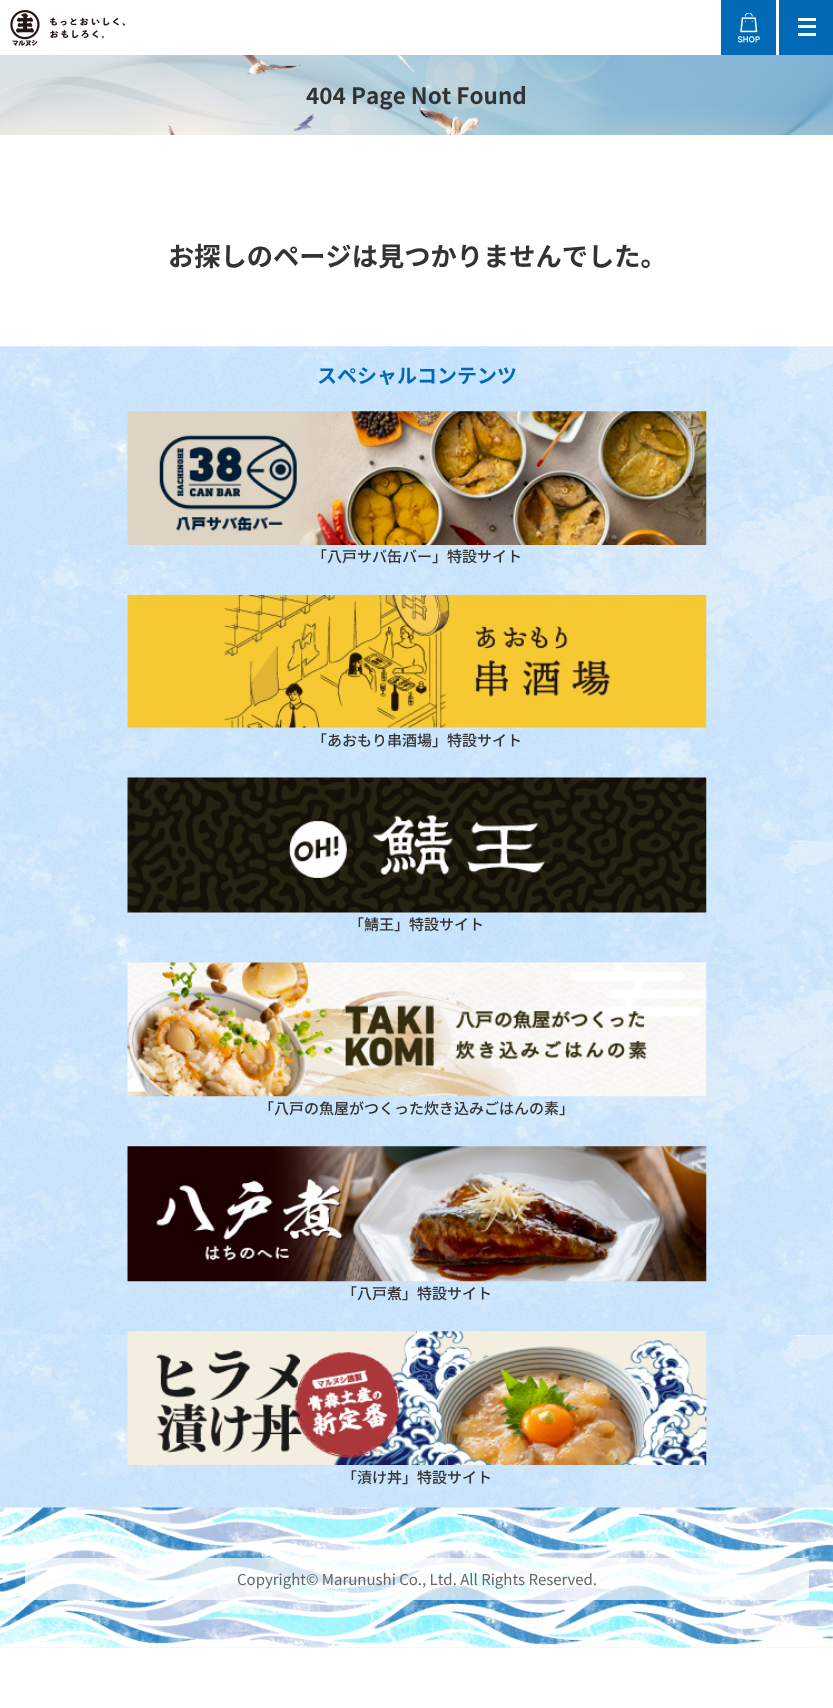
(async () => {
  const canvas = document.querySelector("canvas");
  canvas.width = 833;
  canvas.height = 1708;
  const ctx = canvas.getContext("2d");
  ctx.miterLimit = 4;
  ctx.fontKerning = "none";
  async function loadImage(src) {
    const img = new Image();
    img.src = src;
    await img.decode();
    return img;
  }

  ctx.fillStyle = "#ffffff";
  ctx.fillRect(0, 0, 833, 1708);
  ctx.drawImage(await loadImage("img/1.png"), 10, 10, 116, 36);
  ctx.fillStyle = "#006ab7";
  ctx.fillRect(721, 0, 55, 55);
  ctx.drawImage(await loadImage("img/2.png"), 738, 13, 22, 30);
  for (const [x, y, w, h, color] of [
    [779, 0, 54, 55, "#006ab7"],
    [798, 18, 18, 3, "#ffffff"],
    [798, 25, 18, 3, "#ffffff"],
    [798, 33, 18, 3, "#ffffff"],
  ]) {
    ctx.fillStyle = color;
    ctx.fillRect(x, y, w, h);
  }
  ctx.drawImage(await loadImage("img/3.png"), 0, 55, 833, 80);
  ctx.drawImage(await loadImage("img/4.png"), 0, 346, 833, 1302);
  ctx.drawImage(await loadImage("img/5.png"), 127, 411, 580, 134);
  ctx.drawImage(await loadImage("img/6.png"), 127, 595, 580, 133);
  ctx.drawImage(await loadImage("img/7.png"), 127, 777, 580, 136);
  ctx.drawImage(await loadImage("img/8.png"), 127, 962, 580, 135);
  ctx.drawImage(await loadImage("img/9.png"), 127, 1146, 580, 136);
  ctx.drawImage(await loadImage("img/10.png"), 127, 1331, 580, 134);
  ctx.drawImage(await loadImage("img/11.png"), 0, 1507, 833, 141);
  ctx.fillStyle = "rgba(255, 255, 255, 0.7)";
  ctx.beginPath();
  ctx.roundRect(25, 1558, 784, 42, 5);
  ctx.fill();
  ctx.font = "bold 22.5px Noto Sans JP";
  ctx.fillStyle = "#333333";
  ctx.fillText("404 Page Not Found", 306, 104);
  ctx.font = "bold 26.25px Noto Sans JP";
  ctx.fillText("お探しのページは見つかりませんでした。", 168, 266);
  ctx.font = "bold 20px Noto Sans JP";
  ctx.fillStyle = "#006ab7";
  ctx.fillText("スペシャルコンテンツ", 317, 383);
  ctx.font = "500 15px Noto Sans JP";
  ctx.fillStyle = "#333333";
  for (const [text, x, y] of [
    ["「八戸サバ缶バー」特設サイト", 312, 562],
    ["「あおもり串酒場」特設サイト", 312, 746],
    ["「鯖王」特設サイト", 349, 930],
    ["「八戸の魚屋がつくった炊き込みごはんの素」", 259, 1114],
    ["「八戸煮」特設サイト", 342, 1299],
    ["「漬け丼」特設サイト", 342, 1483],
  ]) {
    ctx.fillText(text, x, y);
  }
  ctx.font = "15px Noto Sans JP";
  ctx.fillStyle = "#666666";
  ctx.fillText("Copyright© Marunushi Co., Ltd. All Rights Reserved.", 237, 1585);
})();
